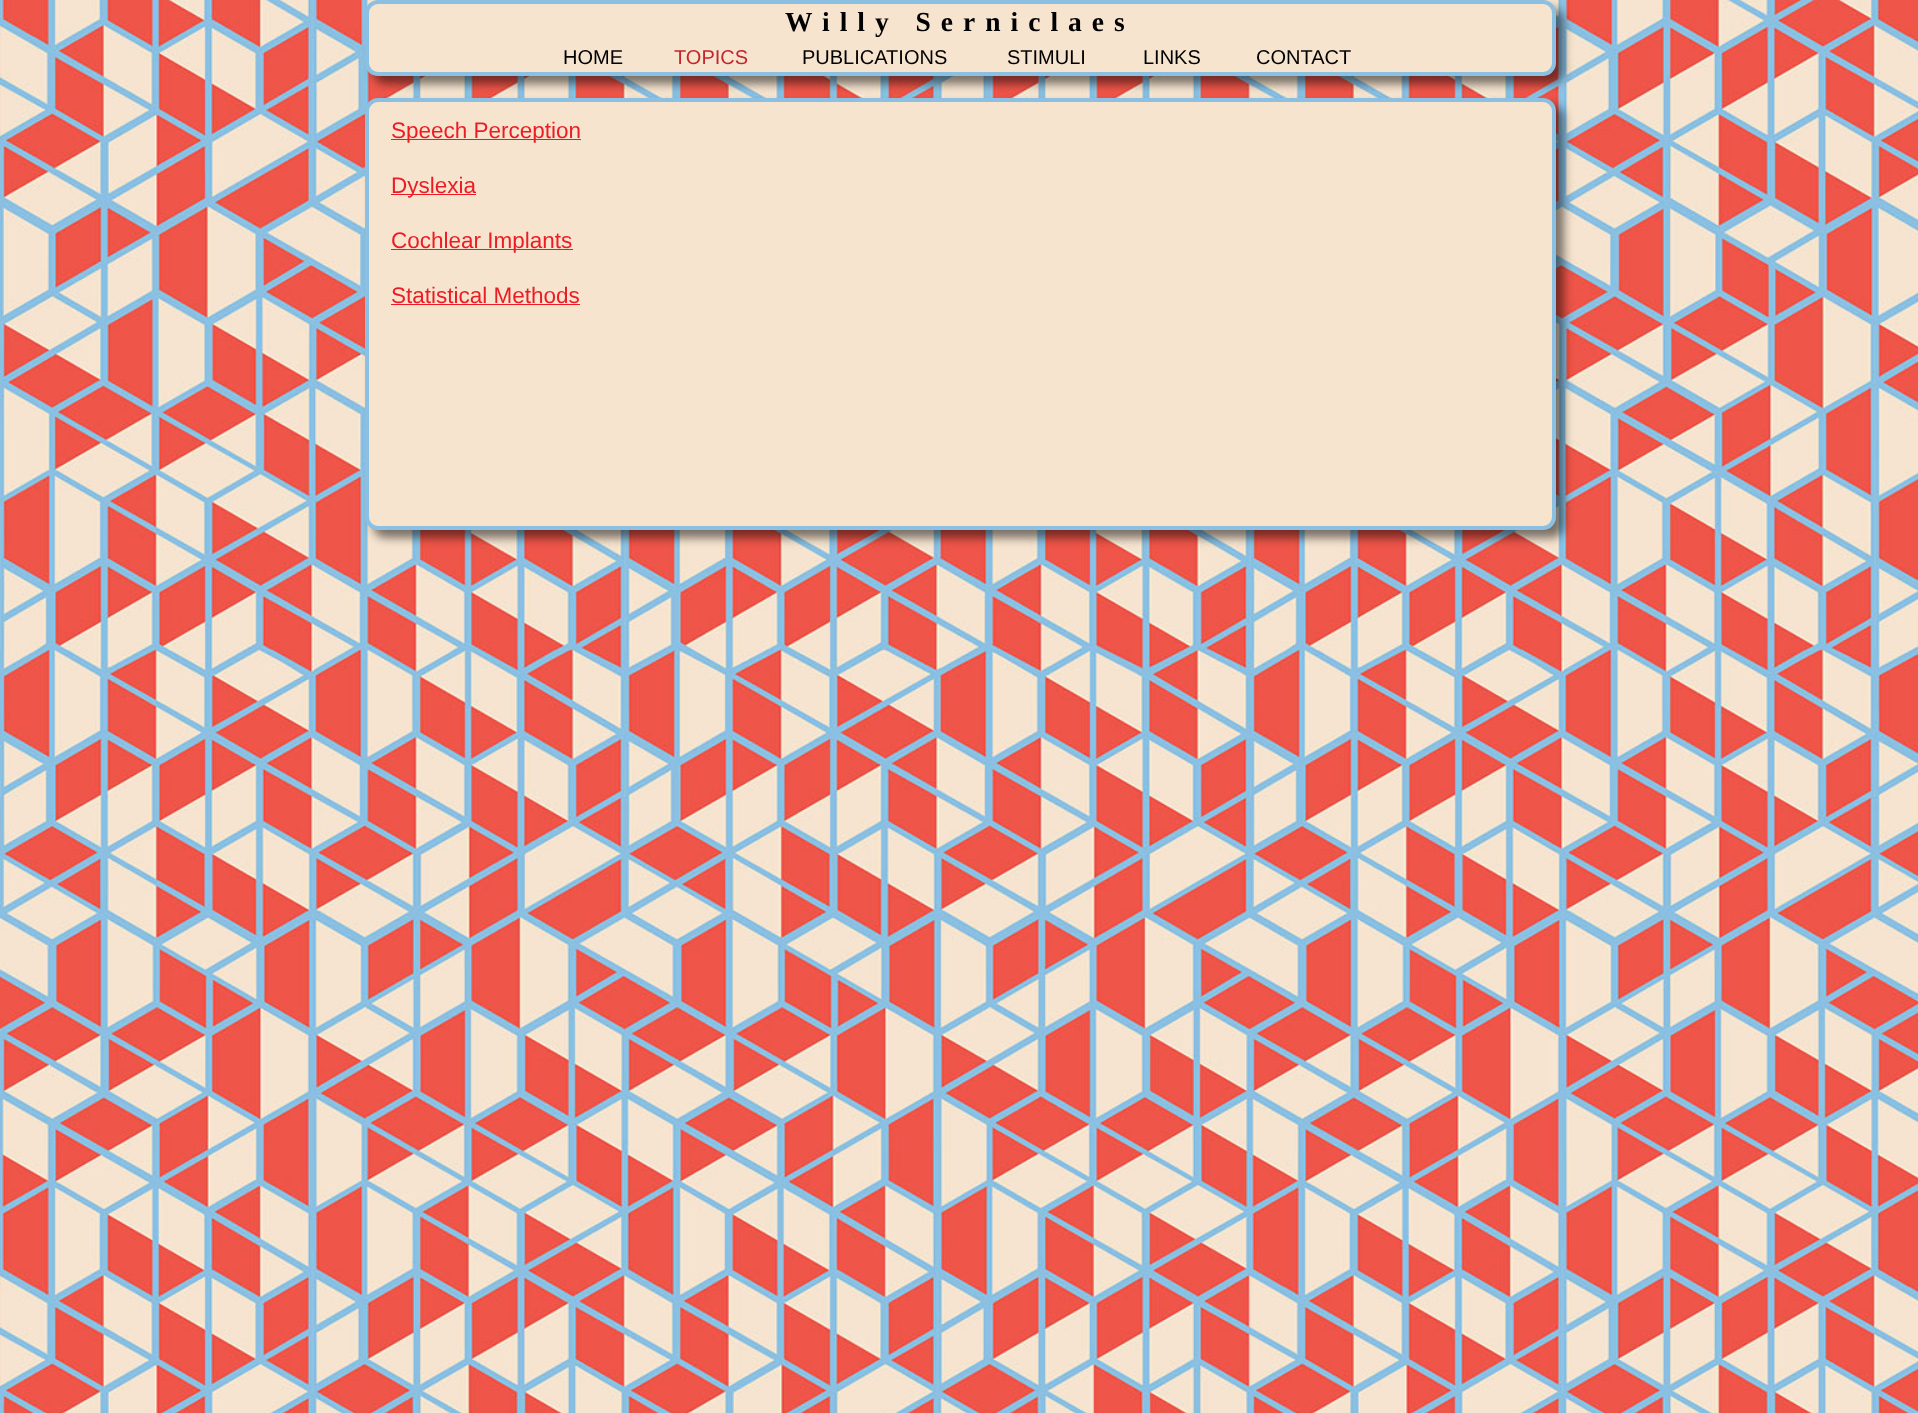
(async () => {
  const canvas = document.querySelector("canvas");
  canvas.width = 1918;
  canvas.height = 1413;
  const ctx = canvas.getContext("2d");
  ctx.miterLimit = 4;
  ctx.fontKerning = "normal";
  async function loadImage(src) {
    const img = new Image();
    img.src = src;
    await img.decode();
    return img;
  }

  ctx.fillStyle = "#ffffff";
  ctx.fillRect(0, 0, 1918, 1413);
  ctx.drawImage(await loadImage("img/1.png"), 0, 0, 1918, 1413);
  ctx.fillStyle = "rgba(0, 0, 0, 0.5)";
  ctx.filter = "blur(5px)";
  ctx.beginPath();
  ctx.roundRect(373, 105, 1191, 433, 13);
  ctx.fill();
  ctx.filter = "none";
  ctx.fillStyle = "#f6e4cf";
  ctx.beginPath();
  ctx.roundRect(367, 100, 1187, 428, 11);
  ctx.fill();
  ctx.strokeStyle = "#8bc0e2";
  ctx.lineWidth = 4;
  ctx.stroke();
  ctx.fillStyle = "rgba(0, 0, 0, 0.5)";
  ctx.filter = "blur(5px)";
  ctx.beginPath();
  ctx.roundRect(373, 8, 1191, 76, 13);
  ctx.fill();
  ctx.filter = "none";
  ctx.fillStyle = "#f6e4cf";
  ctx.beginPath();
  ctx.roundRect(367, 2, 1187, 72, 11);
  ctx.fill();
  ctx.stroke();
  for (const [x, y, w, h, color] of [
    [391, 139, 190, 1, "#ed1c24"],
    [391, 194, 85, 1, "#ed1c24"],
    [391, 249, 182, 1, "#ed1c24"],
    [391, 304, 189, 1, "#ed1c24"],
  ]) {
    ctx.fillStyle = color;
    ctx.fillRect(x, y, w, h);
  }
  ctx.letterSpacing = "10px";
  ctx.font = "bold 27.5px Liberation Serif";
  ctx.fillStyle = "#000000";
  ctx.fillText("Willy Serniclaes", 785, 31);
  ctx.letterSpacing = "0px";
  ctx.font = "20px Liberation Sans";
  ctx.fillText("HOME", 563, 64);
  ctx.fillStyle = "#c1272d";
  ctx.fillText("TOPICS", 674, 64);
  ctx.fillStyle = "#000000";
  for (const [text, x, y] of [
    ["PUBLICATIONS", 802, 64],
    ["STIMULI", 1007, 64],
    ["LINKS", 1143, 64],
    ["CONTACT", 1256, 64],
  ]) {
    ctx.fillText(text, x, y);
  }
  ctx.font = "22.5px Liberation Sans";
  ctx.fillStyle = "#ed1c24";
  for (const [text, x, y] of [
    ["Speech Perception", 391, 138],
    ["Dyslexia", 391, 193],
    ["Cochlear Implants", 391, 248],
    ["Statistical Methods", 391, 303],
  ]) {
    ctx.fillText(text, x, y);
  }
})();
